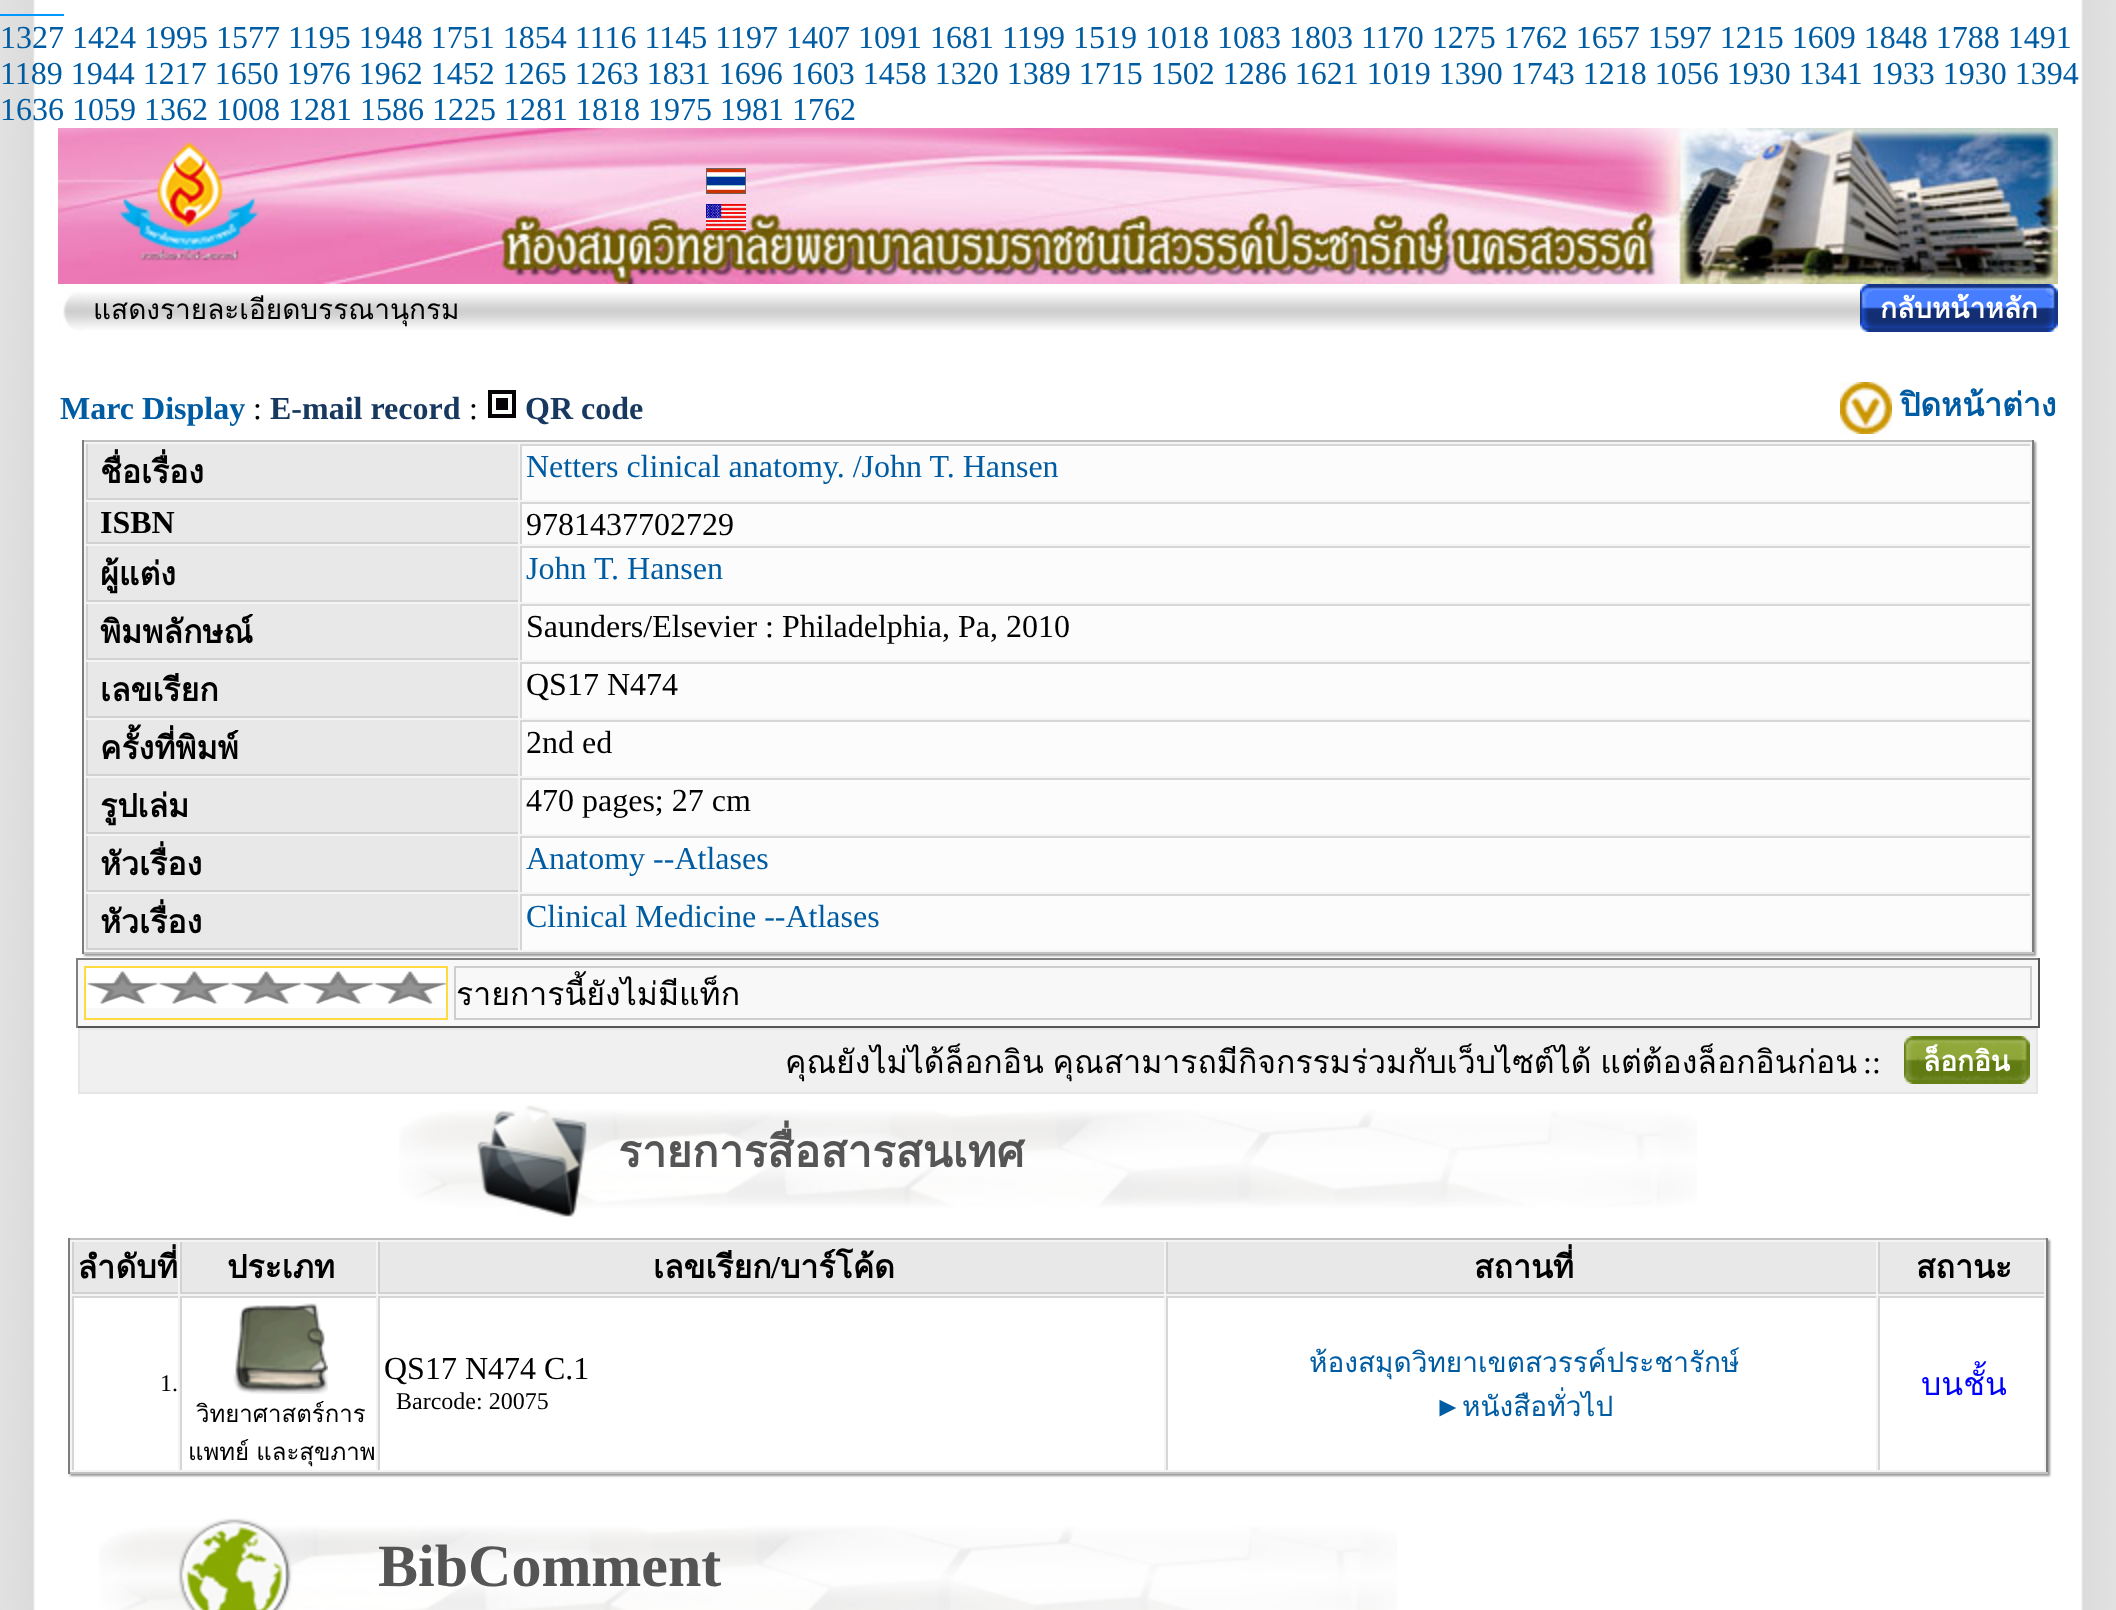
(async () => {
  const canvas = document.querySelector("canvas");
  canvas.width = 2116;
  canvas.height = 1610;
  const ctx = canvas.getContext("2d");
  ctx.miterLimit = 4;
  ctx.fontKerning = "normal";
  async function loadImage(src) {
    const img = new Image();
    img.src = src;
    await img.decode();
    return img;
  }

  ctx.fillStyle = "#ffffff";
  ctx.fillRect(0, 0, 2116, 1610);
  ctx.drawImage(await loadImage("img/1.png"), 0, 0, 2116, 1610);
  ctx.fillStyle = "#0099ff";
  ctx.fillRect(0, 14, 64, 2);
  ctx.drawImage(await loadImage("img/2.png"), 58, 128, 2000, 156);
  ctx.drawImage(await loadImage("img/3.png"), 119, 141, 140, 120);
  ctx.drawImage(await loadImage("img/4.png"), 706, 168, 40, 26);
  ctx.drawImage(await loadImage("img/5.png"), 706, 204, 40, 26);
  ctx.drawImage(await loadImage("img/6.png"), 84, 292, 1296, 38);
  ctx.drawImage(await loadImage("img/7.png"), 58, 292, 26, 39);
  ctx.drawImage(await loadImage("img/8.png"), 1380, 292, 678, 38);
  ctx.drawImage(await loadImage("img/9.png"), 1860, 284, 12, 48);
  ctx.drawImage(await loadImage("img/10.png"), 1872, 284, 186, 48);
  ctx.drawImage(await loadImage("img/11.png"), 488, 390, 28, 28);
  ctx.drawImage(await loadImage("img/12.png"), 1840, 382, 52, 52);
  ctx.fillStyle = "rgba(50, 50, 50, 0.5)";
  ctx.filter = "blur(1px)";
  ctx.beginPath();
  ctx.rect(84, 442, 1952, 514);
  ctx.fill();
  ctx.filter = "none";
  for (const [x, y, w, h, color] of [
    [84, 442, 1948, 510, "#f4f4f4"],
    [82, 440, 1952, 2, "#c1c1c1"],
    [2032, 440, 2, 514, "#7c7c7c"],
    [82, 952, 1952, 2, "#c1c1c1"],
    [82, 440, 2, 514, "#7c7c7c"],
    [88, 444, 430, 54, "#e8e8e8"],
    [86, 498, 432, 2, "#d1d1d1"],
    [86, 444, 2, 56, "#d1d1d1"],
    [522, 446, 1508, 54, "#fcfcfc"],
    [520, 444, 1510, 2, "#d6d6d6"],
    [520, 444, 2, 56, "#d6d6d6"],
    [88, 502, 430, 40, "#e8e8e8"],
    [86, 542, 432, 2, "#d1d1d1"],
    [86, 502, 2, 42, "#d1d1d1"],
    [522, 504, 1508, 40, "#fcfcfc"],
    [520, 502, 1510, 2, "#d6d6d6"],
    [520, 502, 2, 42, "#d6d6d6"],
    [88, 546, 430, 54, "#e8e8e8"],
    [86, 600, 432, 2, "#d1d1d1"],
    [86, 546, 2, 56, "#d1d1d1"],
    [522, 548, 1508, 54, "#fcfcfc"],
    [520, 546, 1510, 2, "#d6d6d6"],
    [520, 546, 2, 56, "#d6d6d6"],
    [88, 604, 430, 54, "#e8e8e8"],
    [86, 658, 432, 2, "#d1d1d1"],
    [86, 604, 2, 56, "#d1d1d1"],
    [522, 606, 1508, 54, "#fcfcfc"],
    [520, 604, 1510, 2, "#d6d6d6"],
    [520, 604, 2, 56, "#d6d6d6"],
    [88, 662, 430, 54, "#e8e8e8"],
    [86, 716, 432, 2, "#d1d1d1"],
    [86, 662, 2, 56, "#d1d1d1"],
    [522, 664, 1508, 54, "#fcfcfc"],
    [520, 662, 1510, 2, "#d6d6d6"],
    [520, 662, 2, 56, "#d6d6d6"],
    [88, 720, 430, 54, "#e8e8e8"],
    [86, 774, 432, 2, "#d1d1d1"],
    [86, 720, 2, 56, "#d1d1d1"],
    [522, 722, 1508, 54, "#fcfcfc"],
    [520, 720, 1510, 2, "#d6d6d6"],
    [520, 720, 2, 56, "#d6d6d6"],
    [88, 778, 430, 54, "#e8e8e8"],
    [86, 832, 432, 2, "#d1d1d1"],
    [86, 778, 2, 56, "#d1d1d1"],
    [522, 780, 1508, 54, "#fcfcfc"],
    [520, 778, 1510, 2, "#d6d6d6"],
    [520, 778, 2, 56, "#d6d6d6"],
    [88, 836, 430, 54, "#e8e8e8"],
    [86, 890, 432, 2, "#d1d1d1"],
    [86, 836, 2, 56, "#d1d1d1"],
    [522, 838, 1508, 54, "#fcfcfc"],
    [520, 836, 1510, 2, "#d6d6d6"],
    [520, 836, 2, 56, "#d6d6d6"],
    [88, 894, 430, 54, "#e8e8e8"],
    [86, 948, 432, 2, "#d1d1d1"],
    [86, 894, 2, 56, "#d1d1d1"],
    [522, 896, 1508, 54, "#fcfcfc"],
    [520, 894, 1510, 2, "#d6d6d6"],
    [520, 894, 2, 56, "#d6d6d6"],
    [78, 960, 1960, 66, "#f8f8f8"],
    [76, 958, 1964, 2, "#808080"],
    [2038, 958, 2, 70, "#555555"],
    [76, 1026, 1964, 2, "#555555"],
    [76, 958, 2, 70, "#808080"],
  ]) {
    ctx.fillStyle = color;
    ctx.fillRect(x, y, w, h);
  }
  ctx.strokeStyle = "#ffd940";
  ctx.lineWidth = 2;
  ctx.strokeRect(85, 967, 362, 52);
  ctx.drawImage(await loadImage("img/13.png"), 86, 968, 360, 40);
  ctx.strokeStyle = "#cecece";
  ctx.strokeRect(455, 967, 1576, 52);
  ctx.fillStyle = "#e6e6e6";
  ctx.fillRect(78, 1028, 1960, 66);
  ctx.fillStyle = "#f0f0f0";
  ctx.fillRect(80, 1030, 1956, 62);
  ctx.drawImage(await loadImage("img/14.png"), 1904, 1036, 12, 48);
  ctx.drawImage(await loadImage("img/15.png"), 1916, 1036, 114, 48);
  ctx.drawImage(await loadImage("img/16.png"), 399, 1105, 1298, 112);
  ctx.fillStyle = "rgba(50, 50, 50, 0.5)";
  ctx.filter = "blur(1px)";
  ctx.beginPath();
  ctx.rect(70, 1240, 1980, 236);
  ctx.fill();
  ctx.filter = "none";
  for (const [x, y, w, h, color] of [
    [70, 1240, 1976, 232, "#f4f4f4"],
    [68, 1238, 1980, 2, "#c1c1c1"],
    [2046, 1238, 2, 236, "#7c7c7c"],
    [68, 1472, 1980, 2, "#c1c1c1"],
    [68, 1238, 2, 236, "#7c7c7c"],
    [74, 1242, 104, 50, "#e8e8e8"],
    [72, 1292, 106, 2, "#d1d1d1"],
    [72, 1242, 2, 52, "#d1d1d1"],
    [182, 1242, 194, 50, "#e8e8e8"],
    [180, 1292, 196, 2, "#d1d1d1"],
    [180, 1242, 2, 52, "#d1d1d1"],
    [380, 1242, 784, 50, "#e8e8e8"],
    [378, 1292, 786, 2, "#d1d1d1"],
    [378, 1242, 2, 52, "#d1d1d1"],
    [1168, 1242, 708, 50, "#e8e8e8"],
    [1166, 1292, 710, 2, "#d1d1d1"],
    [1166, 1242, 2, 52, "#d1d1d1"],
    [1880, 1242, 164, 50, "#e8e8e8"],
    [1878, 1292, 166, 2, "#d1d1d1"],
    [1878, 1242, 2, 52, "#d1d1d1"],
    [74, 1298, 104, 172, "#ffffff"],
    [72, 1296, 106, 2, "#d6d6d6"],
    [72, 1296, 2, 174, "#d6d6d6"],
    [380, 1298, 784, 172, "#ffffff"],
    [378, 1296, 786, 2, "#d6d6d6"],
    [378, 1296, 2, 174, "#d6d6d6"],
    [1168, 1298, 708, 172, "#ffffff"],
    [1166, 1296, 710, 2, "#d6d6d6"],
    [1166, 1296, 2, 174, "#d6d6d6"],
    [1880, 1298, 164, 172, "#ffffff"],
    [1878, 1296, 166, 2, "#d6d6d6"],
    [1878, 1296, 2, 174, "#d6d6d6"],
    [182, 1298, 194, 172, "#ffffff"],
    [180, 1296, 196, 2, "#d6d6d6"],
    [180, 1296, 2, 174, "#d6d6d6"],
  ]) {
    ctx.fillStyle = color;
    ctx.fillRect(x, y, w, h);
  }
  ctx.drawImage(await loadImage("img/17.png"), 233, 1303, 95, 91);
  ctx.drawImage(await loadImage("img/18.png"), 99, 1518, 1298, 92);
  ctx.font = "32px Liberation Serif";
  ctx.fillStyle = "#005ca2";
  for (const [text, x, y] of [
    ["1327 1424 1995 1577 1195 1948 1751 1854 1116 1145 1197 1407 1091 1681 1199 1519 1018 1083 1803 1170 1275 1762 1657 1597 1215 1609 1848 1788 1491", 0, 48],
    ["1189 1944 1217 1650 1976 1962 1452 1265 1263 1831 1696 1603 1458 1320 1389 1715 1502 1286 1621 1019 1390 1743 1218 1056 1930 1341 1933 1930 1394", 0, 84],
    ["1636 1059 1362 1008 1281 1586 1225 1281 1818 1975 1981 1762", 0, 120],
  ]) {
    ctx.fillText(text, x, y);
  }
  ctx.font = "28px Loma";
  ctx.fillStyle = "#000000";
  ctx.fillText("แสดงรายละเอียดบรรณานุกรม", 93, 319);
  ctx.font = "bold 28px Loma";
  ctx.fillStyle = "#ffffff";
  ctx.fillText("กลับหน้าหลัก", 1880, 318);
  ctx.font = "bold 32px Liberation Serif";
  ctx.fillStyle = "#005ca2";
  ctx.fillText("Marc Display", 60, 419);
  ctx.font = "32px Liberation Serif";
  ctx.fillStyle = "#000000";
  ctx.fillText(":", 253, 419);
  ctx.font = "bold 32px Liberation Serif";
  ctx.fillStyle = "#173960";
  ctx.fillText("E-mail record", 270, 419);
  ctx.font = "32px Liberation Serif";
  ctx.fillStyle = "#000000";
  ctx.fillText(":", 469, 419);
  ctx.font = "bold 32px Liberation Serif";
  ctx.fillStyle = "#173960";
  ctx.fillText("QR code", 525, 419);
  ctx.font = "bold 32px Loma";
  ctx.fillStyle = "#005ca2";
  ctx.fillText("ปิดหน้าต่าง", 1900, 416);
  ctx.fillStyle = "#000000";
  ctx.fillText("ชื่อเรื่อง", 100, 483);
  ctx.font = "32px Liberation Serif";
  ctx.fillStyle = "#005ca2";
  ctx.fillText("Netters clinical anatomy. /John T. Hansen", 526, 477);
  ctx.font = "bold 32px Liberation Serif";
  ctx.fillStyle = "#000000";
  ctx.fillText("ISBN", 100, 533);
  ctx.font = "32px Liberation Serif";
  ctx.fillText("9781437702729", 526, 535);
  ctx.font = "bold 32px Loma";
  ctx.fillText("ผู้แต่ง", 100, 585);
  ctx.font = "32px Liberation Serif";
  ctx.fillStyle = "#005ca2";
  ctx.fillText("John T. Hansen", 526, 579);
  ctx.font = "bold 32px Loma";
  ctx.fillStyle = "#000000";
  ctx.fillText("พิมพลักษณ์", 100, 643);
  ctx.font = "32px Liberation Serif";
  ctx.fillText("Saunders/Elsevier : Philadelphia, Pa, 2010", 526, 637);
  ctx.font = "bold 32px Loma";
  ctx.fillText("เลขเรียก", 100, 701);
  ctx.font = "32px Liberation Serif";
  ctx.fillText("QS17 N474", 526, 695);
  ctx.font = "bold 32px Loma";
  ctx.fillText("ครั้งที่พิมพ์", 100, 759);
  ctx.font = "32px Liberation Serif";
  ctx.fillText("2nd ed", 526, 753);
  ctx.font = "bold 32px Loma";
  ctx.fillText("รูปเล่ม", 100, 817);
  ctx.font = "32px Liberation Serif";
  ctx.fillText("470 pages; 27 cm", 526, 811);
  ctx.font = "bold 32px Loma";
  ctx.fillText("หัวเรื่อง", 100, 875);
  ctx.font = "32px Liberation Serif";
  ctx.fillStyle = "#005ca2";
  ctx.fillText("Anatomy --Atlases", 526, 869);
  ctx.font = "bold 32px Loma";
  ctx.fillStyle = "#000000";
  ctx.fillText("หัวเรื่อง", 100, 933);
  ctx.font = "32px Liberation Serif";
  ctx.fillStyle = "#005ca2";
  ctx.fillText("Clinical Medicine --Atlases", 526, 927);
  ctx.font = "32px Loma";
  ctx.fillStyle = "#000000";
  ctx.fillText("รายการนี้ยังไม่มีแท็ก", 456, 1005);
  ctx.wordSpacing = "-2px";
  ctx.fillText("คุณยังไม่ได้ล็อกอิน คุณสามารถมีกิจกรรมร่วมกับเว็บไซต์ได้ แต่ต้องล็อกอินก่อน", 785, 1073);
  ctx.wordSpacing = "0px";
  ctx.font = "32px Liberation Serif";
  ctx.fillText("::", 1863, 1073);
  ctx.font = "bold 28px Loma";
  ctx.fillStyle = "#ffffff";
  ctx.fillText("ล็อกอิน", 1923, 1071);
  ctx.font = "bold 44px Loma";
  ctx.fillStyle = "#555555";
  ctx.fillText("รายการสื่อสารสนเทศ", 618, 1167);
  ctx.font = "bold 32px Loma";
  ctx.fillStyle = "#000000";
  for (const [text, x, y] of [
    ["ลำดับที่", 78, 1278],
    ["ประเภท", 227, 1278],
    ["เลขเรียก", 653, 1278],
  ]) {
    ctx.fillText(text, x, y);
  }
  ctx.font = "bold 32px Liberation Serif";
  ctx.fillText("/", 771, 1278);
  ctx.font = "bold 32px Loma";
  for (const [text, x, y] of [
    ["บาร์โค้ด", 780, 1278],
    ["สถานที่", 1474, 1278],
    ["สถานะ", 1916, 1278],
  ]) {
    ctx.fillText(text, x, y);
  }
  ctx.font = "24px Liberation Serif";
  ctx.fillText("1.", 160, 1391);
  ctx.font = "32px Liberation Serif";
  ctx.fillText("QS17 N474 C.1", 384, 1379);
  ctx.font = "24px Liberation Serif";
  ctx.fillText("Barcode: 20075", 396, 1409);
  ctx.font = "28px Loma";
  ctx.fillStyle = "#005ca2";
  ctx.fillText("ห้องสมุดวิทยาเขตสวรรค์ประชารักษ์", 1309, 1372);
  ctx.font = "28px Liberation Serif";
  ctx.fillText("►", 1434, 1416);
  ctx.font = "28px Loma";
  ctx.fillText("หนังสือทั่วไป", 1462, 1416);
  ctx.font = "32px Loma";
  ctx.fillStyle = "#0000ff";
  ctx.fillText("บนชั้น", 1921, 1395);
  ctx.font = "24px Loma";
  ctx.fillStyle = "#000000";
  ctx.fillText("วิทยาศาสตร์การ", 196, 1422);
  ctx.wordSpacing = "-1px";
  ctx.fillText("แพทย์ และสุขภาพ", 188, 1460);
  ctx.wordSpacing = "0px";
  ctx.font = "bold 60px Liberation Serif";
  ctx.fillStyle = "#555555";
  ctx.fillText("BibComment", 378, 1586);
})();
